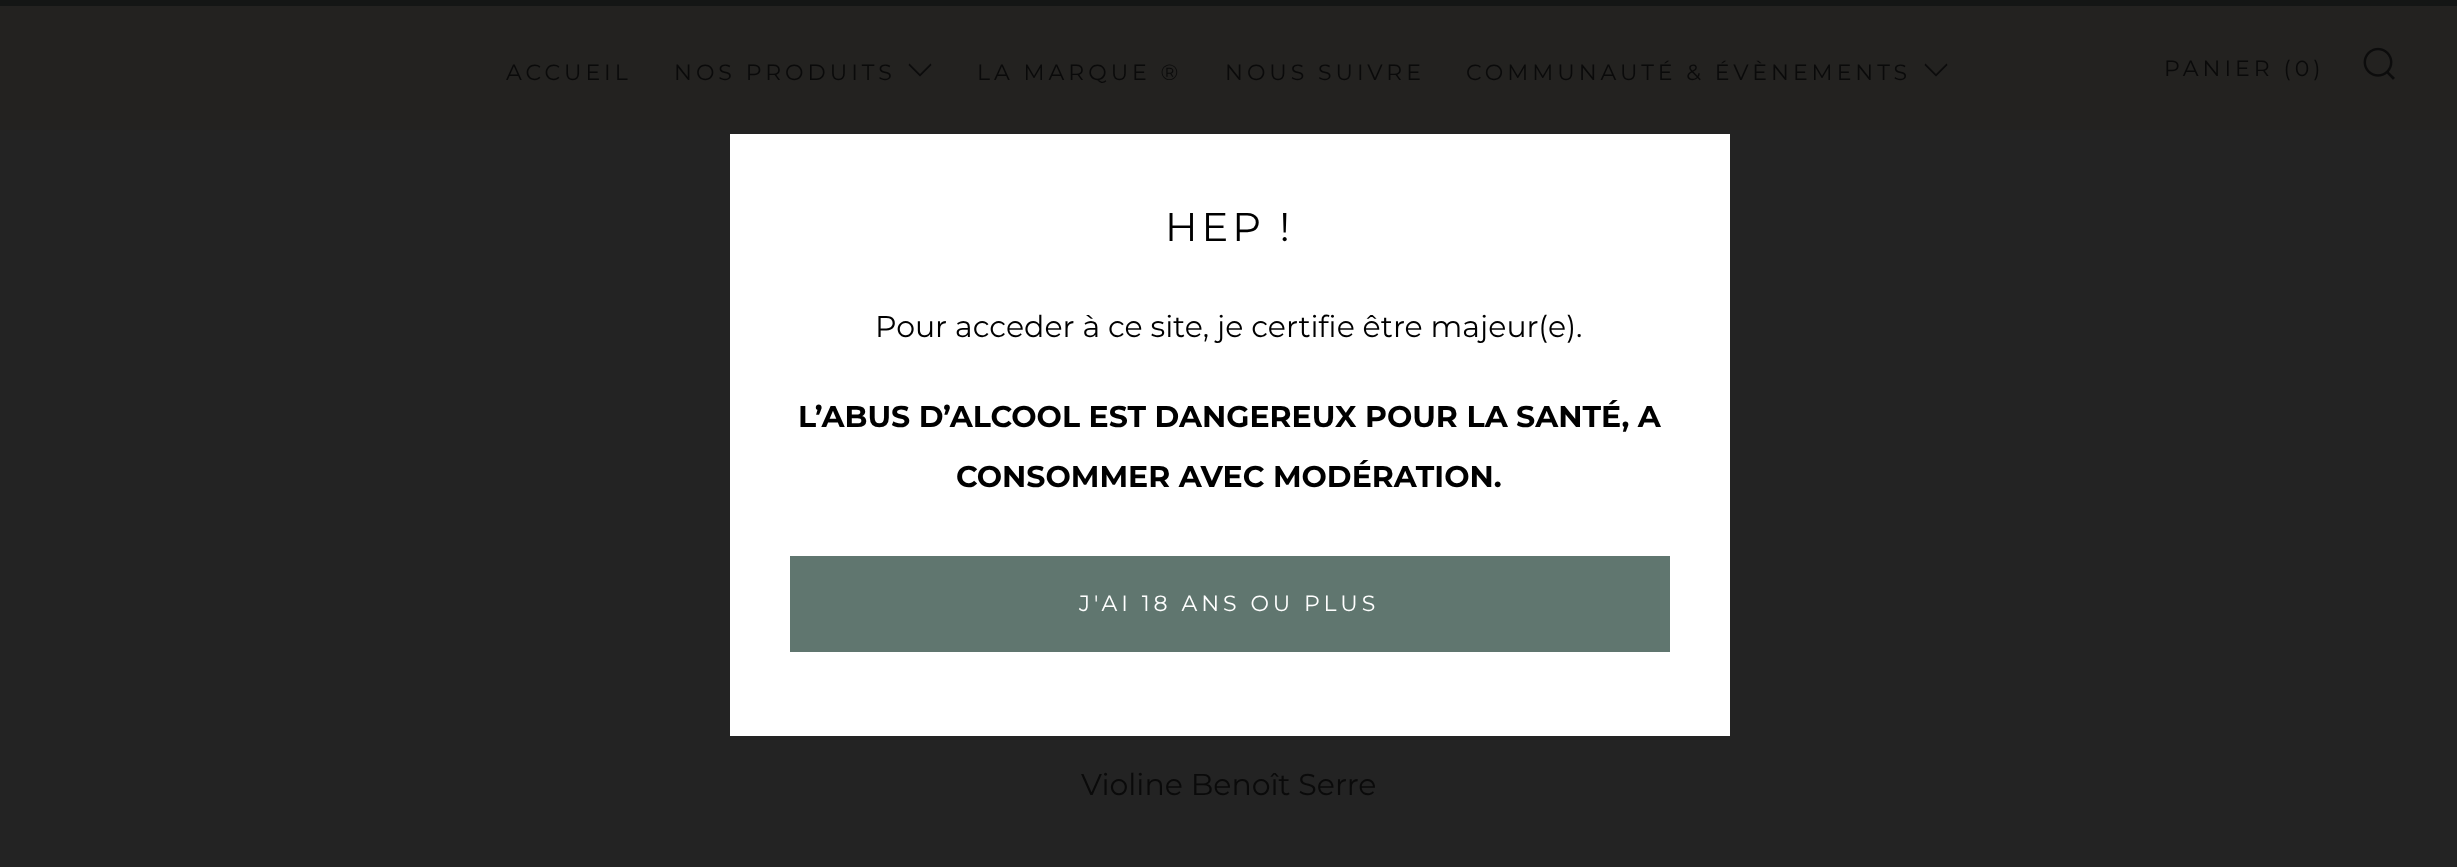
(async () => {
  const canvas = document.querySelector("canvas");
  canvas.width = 2457;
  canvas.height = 867;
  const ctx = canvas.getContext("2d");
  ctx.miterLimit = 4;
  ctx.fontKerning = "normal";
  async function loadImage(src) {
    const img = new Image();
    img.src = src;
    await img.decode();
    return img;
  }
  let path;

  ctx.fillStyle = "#232323";
  ctx.fillRect(0, 0, 2457, 867);
  ctx.fillStyle = "#141615";
  ctx.fillRect(0, 0, 2457, 6);
  ctx.fillStyle = "#232220";
  ctx.fillRect(0, 6, 2457, 124);
  ctx.fillStyle = "#0c0c0c";
  path = new Path2D("M909.5 63.5L908.5 65L920 76.5L931.5 65L930.5 63.5L920 74Z");
  ctx.fill(path);
  path = new Path2D("M1925.5 63.5L1924.5 65L1936 76.5L1947.5 65L1946.5 63.5L1936 74Z");
  ctx.fill(path);
  ctx.drawImage(await loadImage("img/1.png"), 2363, 47, 32, 33);
  ctx.fillStyle = "#ffffff";
  ctx.fillRect(730, 134, 1000, 602);
  ctx.fillStyle = "#60766f";
  ctx.fillRect(790, 556, 880, 96);
  ctx.letterSpacing = "4px";
  ctx.font = "22px Montserrat";
  ctx.fillStyle = "#0a0a0a";
  for (const [text, x, y] of [
    ["ACCUEIL", 506, 80],
    ["NOS PRODUITS", 674, 80],
    ["LA MARQUE ®", 977, 80],
    ["NOUS SUIVRE", 1225, 80],
    ["COMMUNAUTÉ & ÉVÈNEMENTS", 1466, 80],
    ["PANIER (0)", 2164, 76],
  ]) {
    ctx.fillText(text, x, y);
  }
  ctx.letterSpacing = "0px";
  ctx.font = "30px Montserrat";
  ctx.fillText("Violine Benoît Serre", 1081, 795);
  ctx.letterSpacing = "4px";
  ctx.font = "40px Montserrat";
  ctx.fillStyle = "#000000";
  ctx.fillText("HEP !", 1165, 241);
  ctx.letterSpacing = "0px";
  ctx.font = "30px Montserrat";
  ctx.fillText("Pour acceder à ce site, je certifie être majeur(e).", 875, 337);
  ctx.font = "bold 30px Montserrat";
  ctx.fillText("L’ABUS D’ALCOOL EST DANGEREUX POUR LA SANTÉ, A", 798, 427);
  ctx.fillText("CONSOMMER AVEC MODÉRATION.", 956, 487);
  ctx.letterSpacing = "4px";
  ctx.font = "22px Montserrat";
  ctx.fillStyle = "#ffffff";
  ctx.fillText("J'AI 18 ANS OU PLUS", 1079, 611);
})();
